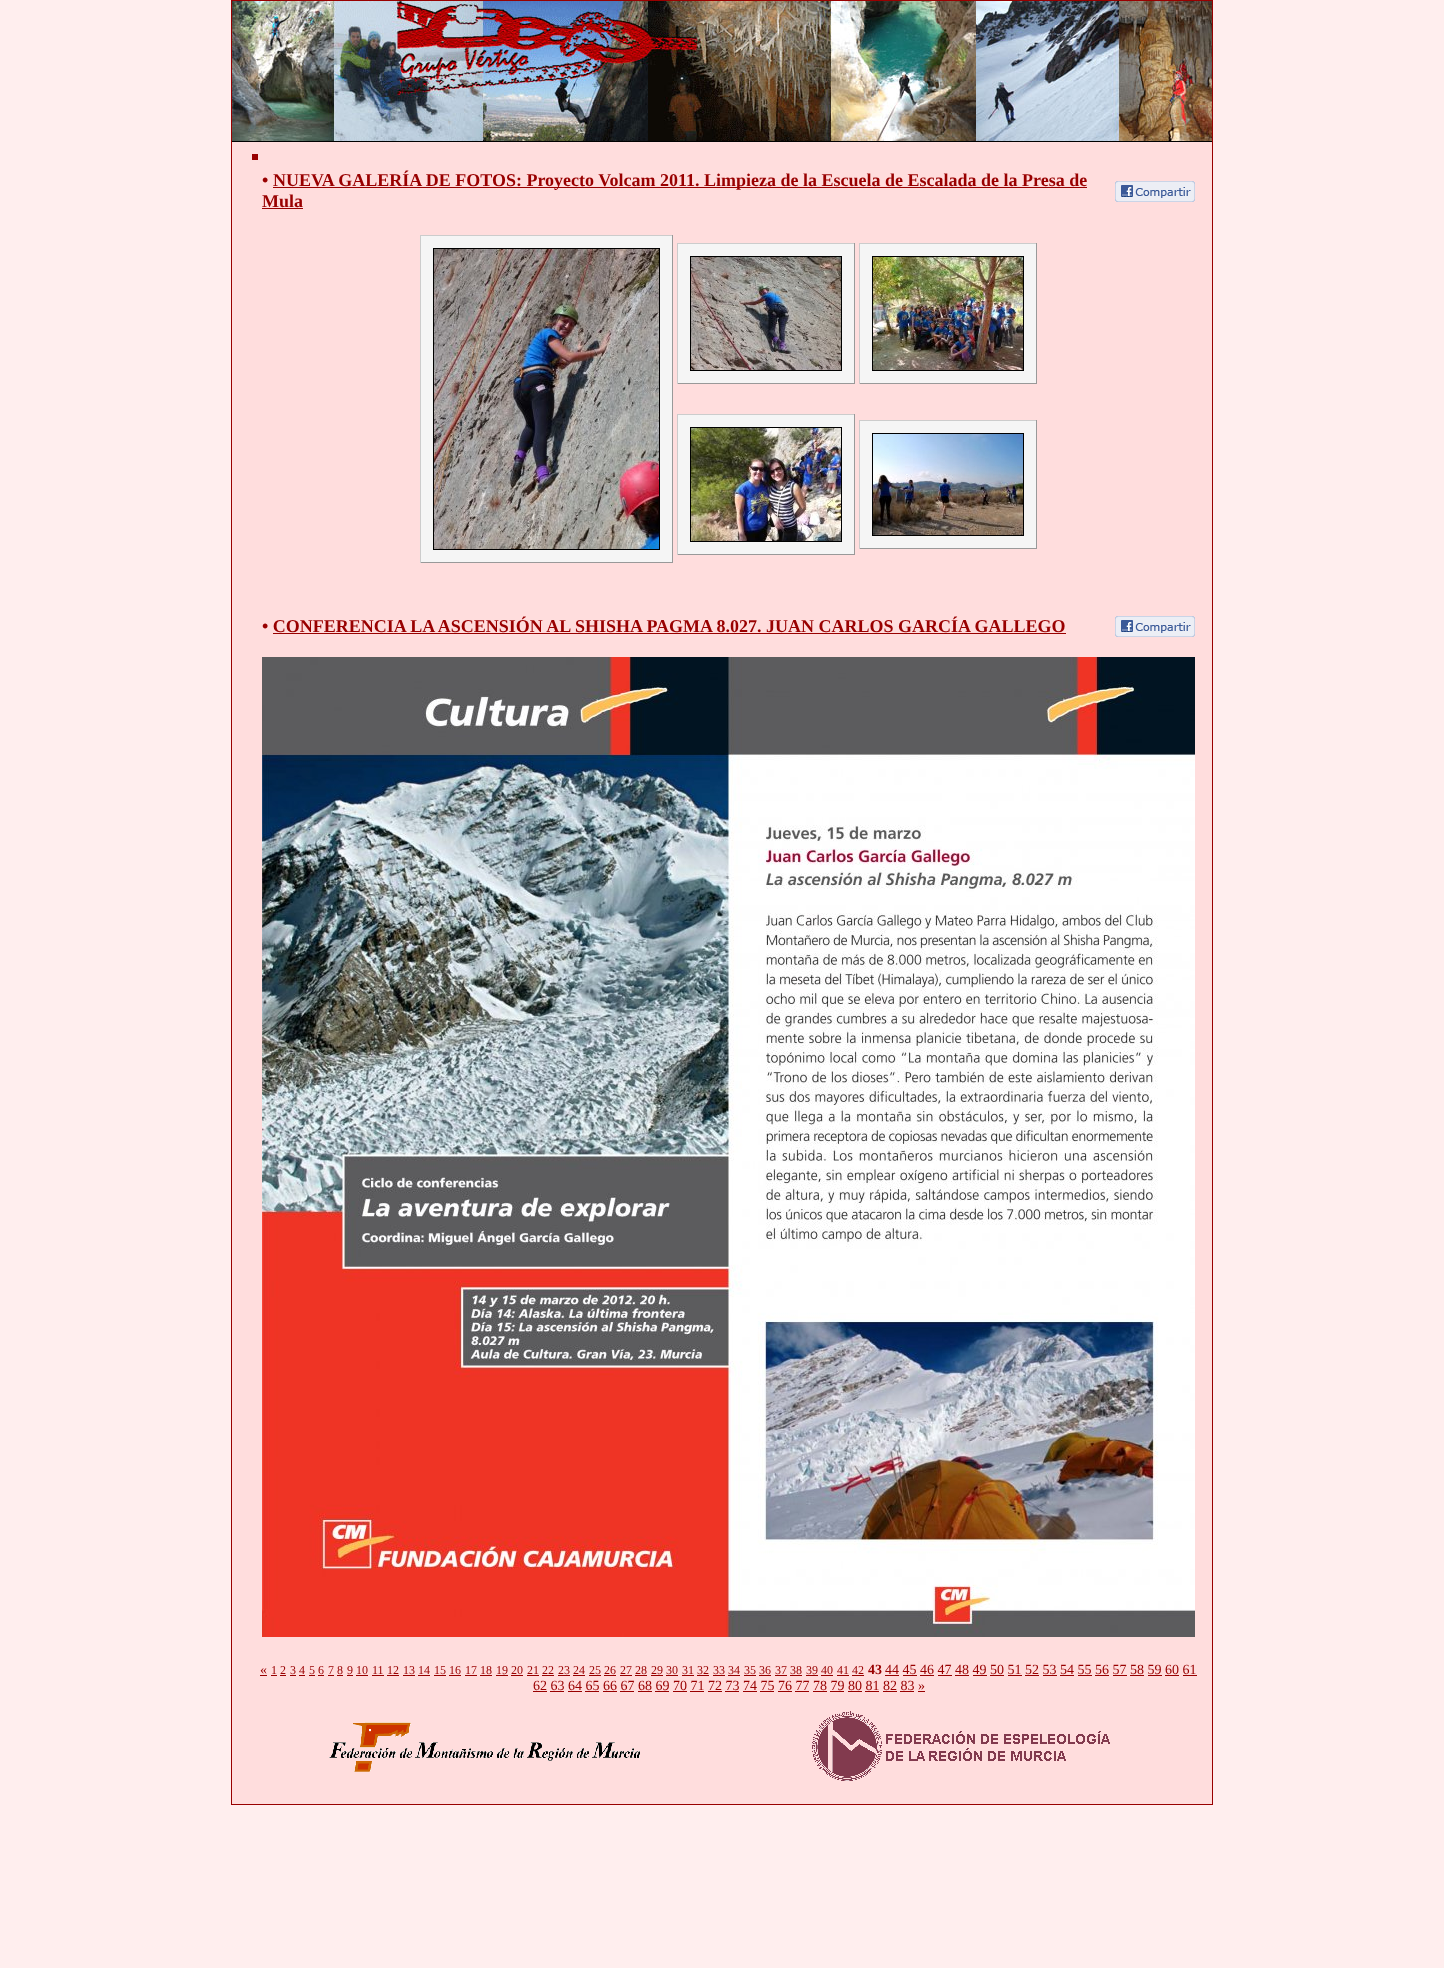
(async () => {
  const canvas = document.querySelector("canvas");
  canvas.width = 1444;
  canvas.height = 1968;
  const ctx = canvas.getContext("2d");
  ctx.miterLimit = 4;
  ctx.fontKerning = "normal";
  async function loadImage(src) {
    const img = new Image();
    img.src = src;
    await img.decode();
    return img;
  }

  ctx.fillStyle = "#ffeeee";
  ctx.fillRect(0, 0, 1444, 1968);
  ctx.strokeStyle = "#990000";
  ctx.strokeRect(231.5, 0.5, 981, 1804);
  ctx.drawImage(await loadImage("img/1.png"), 232, 1, 980, 140);
  for (const [x, y, w, h, color] of [
    [232, 142, 980, 1662, "#ffdddd"],
    [232, 141, 980, 1, "#000000"],
    [252, 154, 6, 6, "#990000"],
    [273, 187, 814, 1, "#990000"],
    [262, 208, 41, 1, "#990000"],
  ]) {
    ctx.fillStyle = color;
    ctx.fillRect(x, y, w, h);
  }
  ctx.drawImage(await loadImage("img/2.png"), 1115, 181, 80, 21);
  for (const [x, y, w, h, color] of [
    [421, 236, 251, 326, "#f5f5f5"],
    [420, 235, 253, 1, "#cccccc"],
    [672, 235, 1, 328, "#999999"],
    [420, 562, 253, 1, "#999999"],
    [420, 235, 1, 328, "#cccccc"],
  ]) {
    ctx.fillStyle = color;
    ctx.fillRect(x, y, w, h);
  }
  ctx.strokeStyle = "#000000";
  ctx.strokeRect(433.5, 248.5, 226, 301);
  ctx.drawImage(await loadImage("img/3.png"), 434, 249, 225, 300);
  for (const [x, y, w, h, color] of [
    [678, 244, 176, 139, "#f5f5f5"],
    [677, 243, 178, 1, "#cccccc"],
    [854, 243, 1, 141, "#999999"],
    [677, 383, 178, 1, "#999999"],
    [677, 243, 1, 141, "#cccccc"],
  ]) {
    ctx.fillStyle = color;
    ctx.fillRect(x, y, w, h);
  }
  ctx.strokeRect(690.5, 256.5, 151, 114);
  ctx.drawImage(await loadImage("img/4.png"), 691, 257, 150, 113);
  for (const [x, y, w, h, color] of [
    [860, 244, 176, 139, "#f5f5f5"],
    [859, 243, 178, 1, "#cccccc"],
    [1036, 243, 1, 141, "#999999"],
    [859, 383, 178, 1, "#999999"],
    [859, 243, 1, 141, "#cccccc"],
  ]) {
    ctx.fillStyle = color;
    ctx.fillRect(x, y, w, h);
  }
  ctx.strokeRect(872.5, 256.5, 151, 114);
  ctx.drawImage(await loadImage("img/5.png"), 873, 257, 150, 113);
  for (const [x, y, w, h, color] of [
    [678, 415, 176, 139, "#f5f5f5"],
    [677, 414, 178, 1, "#cccccc"],
    [854, 414, 1, 141, "#999999"],
    [677, 554, 178, 1, "#999999"],
    [677, 414, 1, 141, "#cccccc"],
  ]) {
    ctx.fillStyle = color;
    ctx.fillRect(x, y, w, h);
  }
  ctx.strokeRect(690.5, 427.5, 151, 114);
  ctx.drawImage(await loadImage("img/6.png"), 691, 428, 150, 113);
  for (const [x, y, w, h, color] of [
    [860, 421, 176, 127, "#f5f5f5"],
    [859, 420, 178, 1, "#cccccc"],
    [1036, 420, 1, 129, "#999999"],
    [859, 548, 178, 1, "#999999"],
    [859, 420, 1, 129, "#cccccc"],
  ]) {
    ctx.fillStyle = color;
    ctx.fillRect(x, y, w, h);
  }
  ctx.strokeRect(872.5, 433.5, 151, 102);
  ctx.drawImage(await loadImage("img/7.png"), 873, 434, 150, 101);
  ctx.fillStyle = "#990000";
  ctx.fillRect(273, 633, 793, 1);
  ctx.drawImage(await loadImage("img/2.png"), 1115, 616, 80, 21);
  ctx.drawImage(await loadImage("img/8.png"), 262, 657, 933, 980);
  for (const [x, y, w, h, color] of [
    [260, 1675, 7, 1, "#990000"],
    [271, 1675, 6, 1, "#990000"],
    [280, 1675, 6, 1, "#990000"],
    [290, 1675, 6, 1, "#990000"],
    [299, 1675, 6, 1, "#990000"],
    [309, 1675, 6, 1, "#990000"],
    [318, 1675, 6, 1, "#990000"],
    [328, 1675, 6, 1, "#990000"],
    [337, 1675, 6, 1, "#990000"],
    [347, 1675, 6, 1, "#990000"],
    [356, 1675, 12, 1, "#990000"],
    [372, 1675, 12, 1, "#990000"],
    [387, 1675, 12, 1, "#990000"],
    [403, 1675, 12, 1, "#990000"],
    [418, 1675, 12, 1, "#990000"],
    [434, 1675, 12, 1, "#990000"],
    [449, 1675, 12, 1, "#990000"],
    [465, 1675, 12, 1, "#990000"],
    [480, 1675, 12, 1, "#990000"],
    [496, 1675, 12, 1, "#990000"],
    [511, 1675, 12, 1, "#990000"],
    [527, 1675, 12, 1, "#990000"],
    [542, 1675, 12, 1, "#990000"],
    [558, 1675, 12, 1, "#990000"],
    [573, 1675, 12, 1, "#990000"],
    [589, 1675, 12, 1, "#990000"],
    [604, 1675, 12, 1, "#990000"],
    [620, 1675, 12, 1, "#990000"],
    [635, 1675, 12, 1, "#990000"],
    [651, 1675, 12, 1, "#990000"],
    [666, 1675, 12, 1, "#990000"],
    [682, 1675, 12, 1, "#990000"],
    [697, 1675, 12, 1, "#990000"],
    [713, 1675, 12, 1, "#990000"],
    [728, 1675, 12, 1, "#990000"],
    [744, 1675, 12, 1, "#990000"],
    [759, 1675, 12, 1, "#990000"],
    [775, 1675, 12, 1, "#990000"],
    [790, 1675, 12, 1, "#990000"],
    [806, 1675, 12, 1, "#990000"],
    [821, 1675, 12, 1, "#990000"],
    [837, 1675, 12, 1, "#990000"],
    [852, 1675, 12, 1, "#990000"],
    [885, 1675, 14, 1, "#990000"],
    [903, 1675, 14, 1, "#990000"],
    [920, 1675, 14, 1, "#990000"],
    [938, 1675, 14, 1, "#990000"],
    [955, 1675, 14, 1, "#990000"],
    [973, 1675, 14, 1, "#990000"],
    [990, 1675, 14, 1, "#990000"],
    [1008, 1675, 14, 1, "#990000"],
    [1025, 1675, 14, 1, "#990000"],
    [1043, 1675, 14, 1, "#990000"],
    [1060, 1675, 14, 1, "#990000"],
    [1078, 1675, 14, 1, "#990000"],
    [1095, 1675, 14, 1, "#990000"],
    [1113, 1675, 14, 1, "#990000"],
    [1130, 1675, 14, 1, "#990000"],
    [1148, 1675, 14, 1, "#990000"],
    [1165, 1675, 14, 1, "#990000"],
    [1183, 1675, 14, 1, "#990000"],
    [533, 1691, 14, 1, "#990000"],
    [550, 1691, 14, 1, "#990000"],
    [568, 1691, 14, 1, "#990000"],
    [585, 1691, 14, 1, "#990000"],
    [603, 1691, 14, 1, "#990000"],
    [620, 1691, 14, 1, "#990000"],
    [638, 1691, 14, 1, "#990000"],
    [655, 1691, 14, 1, "#990000"],
    [673, 1691, 14, 1, "#990000"],
    [690, 1691, 14, 1, "#990000"],
    [708, 1691, 14, 1, "#990000"],
    [725, 1691, 14, 1, "#990000"],
    [743, 1691, 14, 1, "#990000"],
    [760, 1691, 14, 1, "#990000"],
    [778, 1691, 14, 1, "#990000"],
    [795, 1691, 14, 1, "#990000"],
    [813, 1691, 14, 1, "#990000"],
    [830, 1691, 14, 1, "#990000"],
    [848, 1691, 14, 1, "#990000"],
    [865, 1691, 14, 1, "#990000"],
    [883, 1691, 14, 1, "#990000"],
    [900, 1691, 14, 1, "#990000"],
    [918, 1691, 7, 1, "#990000"],
  ]) {
    ctx.fillStyle = color;
    ctx.fillRect(x, y, w, h);
  }
  ctx.drawImage(await loadImage("img/9.png"), 329, 1722, 311, 50);
  ctx.drawImage(await loadImage("img/10.png"), 812, 1711, 298, 70);
  ctx.font = "bold 18px Liberation Serif";
  for (const [text, x, y] of [
    ["•", 262, 186],
    ["NUEVA GALERÍA DE FOTOS: Proyecto Volcam 2011. Limpieza de la Escuela de Escalada de la Presa de", 273, 186],
    ["Mula", 262, 207],
    ["• CONFERENCIA LA ASCENSIÓN AL SHISHA PAGMA 8.027. JUAN CARLOS GARCÍA GALLEGO", 262, 632],
  ]) {
    ctx.fillText(text, x, y);
  }
  ctx.font = "14px Liberation Serif";
  ctx.fillText("«", 260, 1674);
  ctx.font = "12px Liberation Serif";
  for (const [text, x, y] of [
    ["1", 271, 1674],
    ["2", 280, 1674],
    ["3", 290, 1674],
    ["4", 299, 1674],
    ["5", 309, 1674],
    ["6", 318, 1674],
    ["7", 328, 1674],
    ["8", 337, 1674],
    ["9", 347, 1674],
    ["10", 356, 1674],
    ["11", 372, 1674],
    ["12", 387, 1674],
    ["13", 403, 1674],
    ["14", 418, 1674],
    ["15", 434, 1674],
    ["16", 449, 1674],
    ["17", 465, 1674],
    ["18", 480, 1674],
    ["19", 496, 1674],
    ["20", 511, 1674],
    ["21", 527, 1674],
    ["22", 542, 1674],
    ["23", 558, 1674],
    ["24", 573, 1674],
    ["25", 589, 1674],
    ["26", 604, 1674],
    ["27", 620, 1674],
    ["28", 635, 1674],
    ["29", 651, 1674],
    ["30", 666, 1674],
    ["31", 682, 1674],
    ["32", 697, 1674],
    ["33", 713, 1674],
    ["34", 728, 1674],
    ["35", 744, 1674],
    ["36", 759, 1674],
    ["37", 775, 1674],
    ["38", 790, 1674],
    ["39", 806, 1674],
    ["40", 821, 1674],
    ["41", 837, 1674],
    ["42", 852, 1674],
  ]) {
    ctx.fillText(text, x, y);
  }
  ctx.font = "bold 14px Liberation Serif";
  ctx.fillText("43", 868, 1674);
  ctx.font = "14px Liberation Serif";
  ctx.fillText("44 45 46 47 48 49 50 51 52 53 54 55 56 57 58 59 60 61", 885, 1674);
  ctx.fillText("62 63 64 65 66 67 68 69 70 71 72 73 74 75 76 77 78 79 80 81 82 83 »", 533, 1690);
})();
